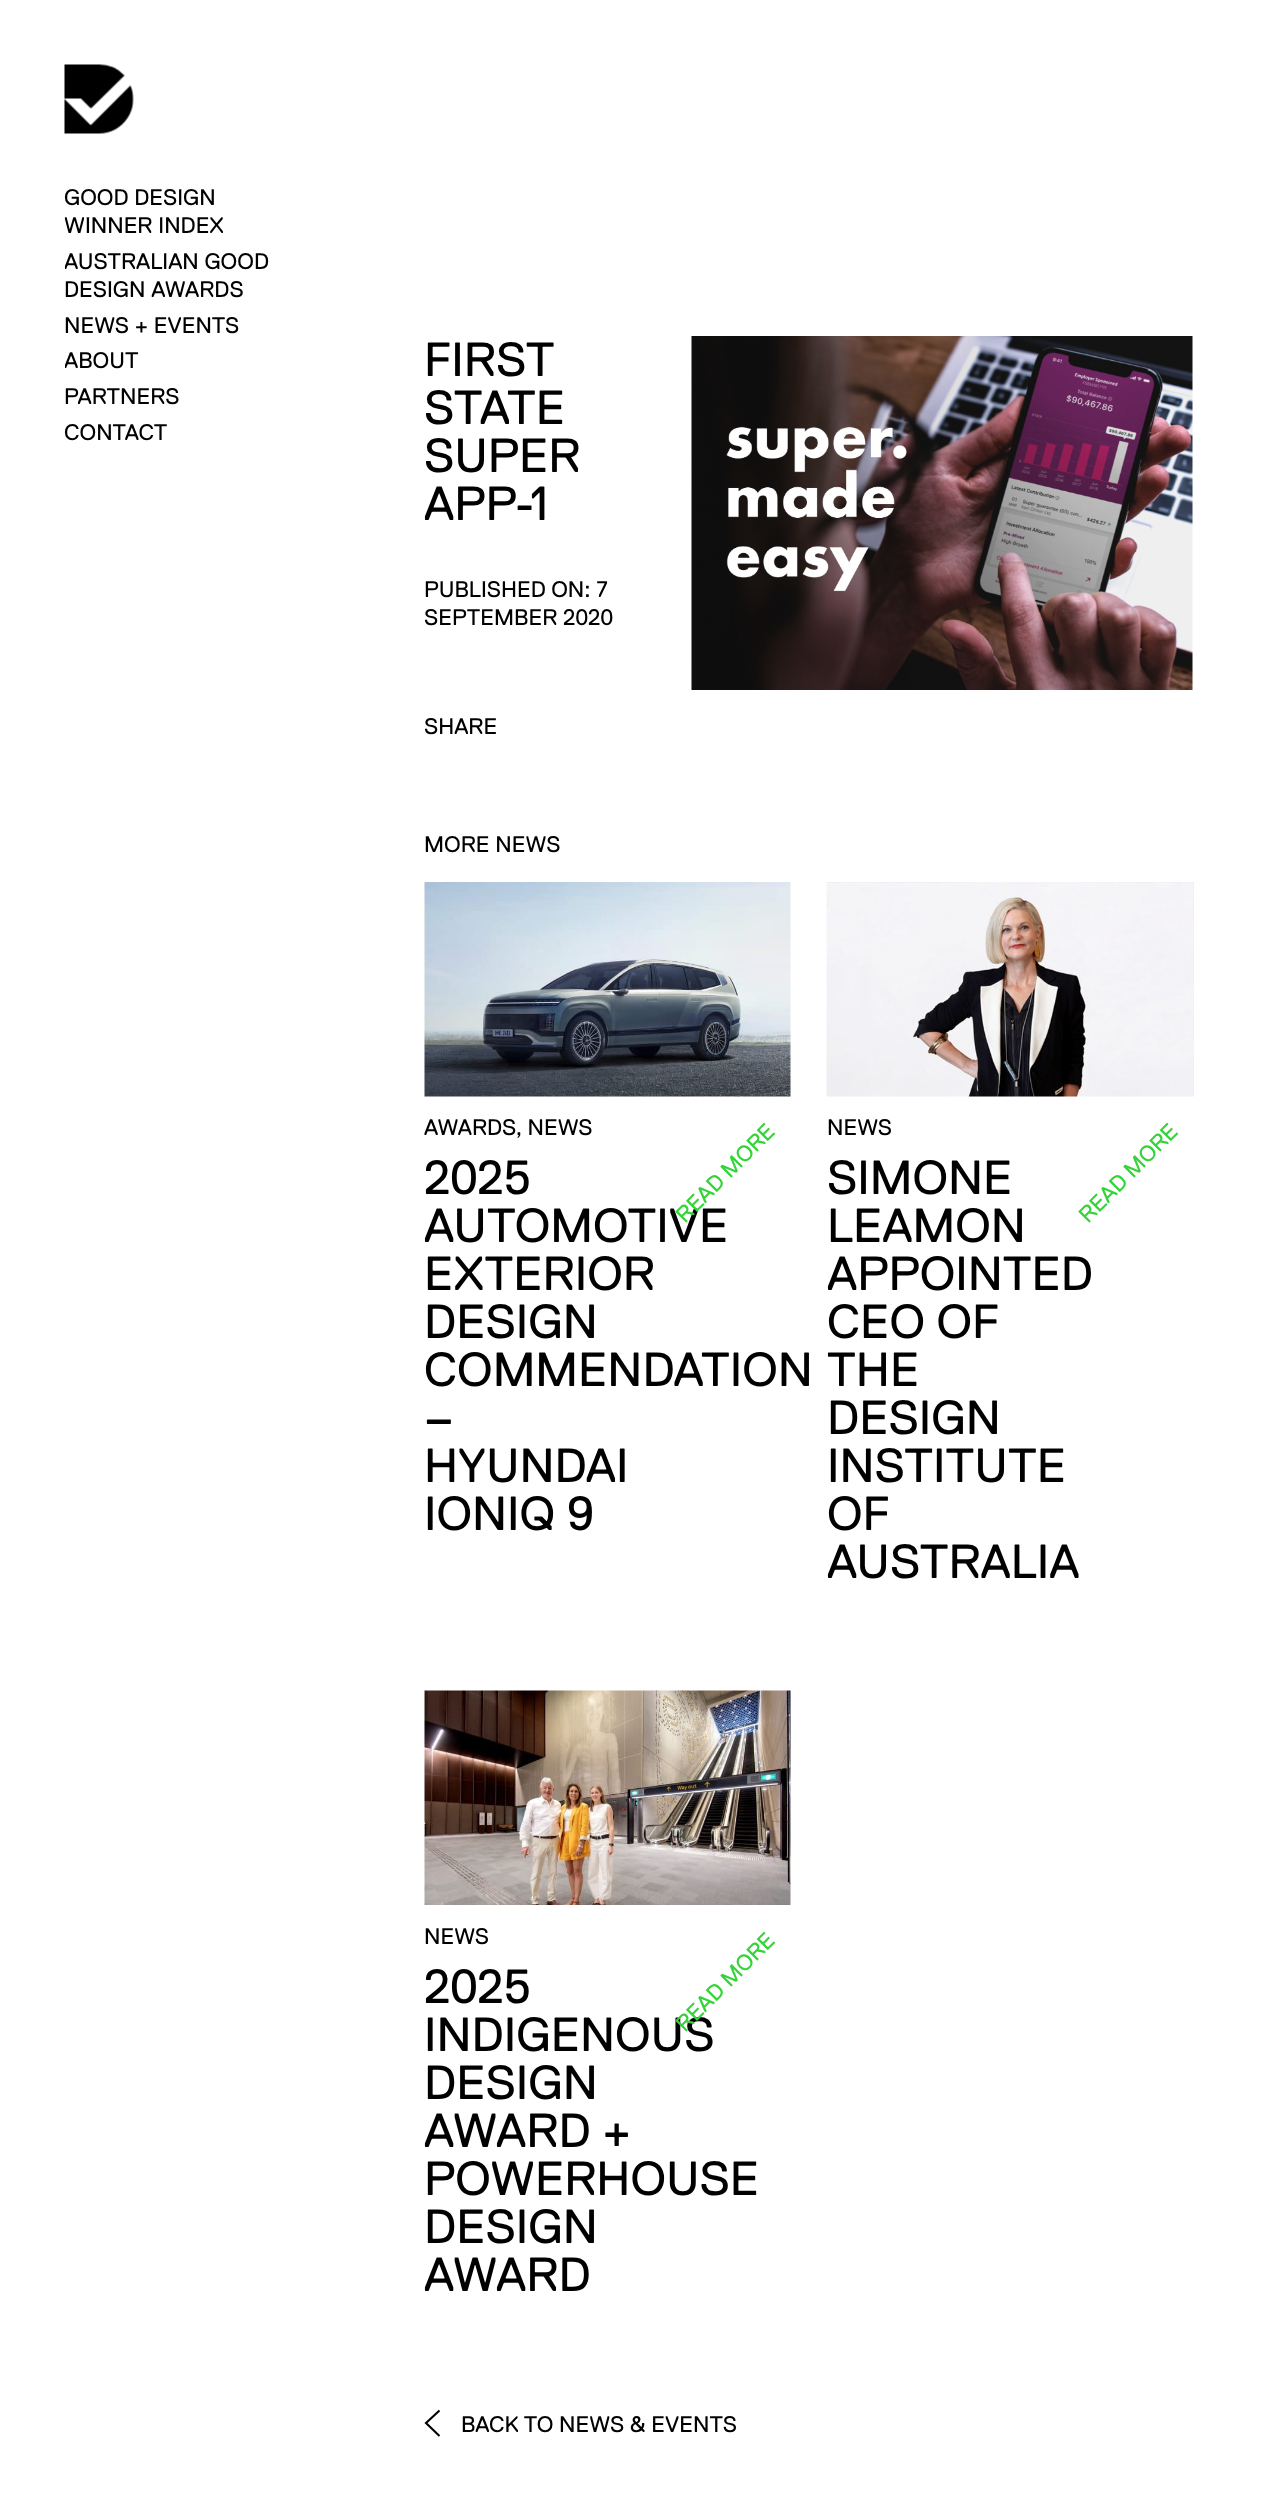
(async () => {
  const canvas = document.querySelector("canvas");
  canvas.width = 1271;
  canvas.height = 2499;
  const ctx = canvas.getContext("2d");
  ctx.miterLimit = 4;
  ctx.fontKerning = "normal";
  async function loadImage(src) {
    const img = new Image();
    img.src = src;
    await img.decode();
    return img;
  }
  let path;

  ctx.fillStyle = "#ffffff";
  ctx.fillRect(0, 0, 1271, 2499);
  ctx.drawImage(await loadImage("img/1.png"), 64, 64, 70, 70);
  ctx.drawImage(await loadImage("img/2.png"), 691, 336, 502, 354);
  ctx.drawImage(await loadImage("img/3.png"), 424, 882, 367, 215);
  ctx.drawImage(await loadImage("img/4.png"), 826, 882, 368, 215);
  ctx.drawImage(await loadImage("img/5.png"), 424, 1690, 367, 215);
  path = new Path2D("M439.5 2436L426 2423L439.5 2410.5");
  ctx.strokeStyle = "#000000";
  ctx.lineWidth = 2.1;
  ctx.stroke(path);
  ctx.font = "22.5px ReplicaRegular";
  ctx.fillStyle = "#000000";
  ctx.fillText("GOOD DESIGN", 64, 205);
  ctx.fillText("WINNER INDEX", 64, 233);
  ctx.save();
  ctx.beginPath();
  ctx.rect(65, 185, 216, 2311);
  ctx.clip();
  ctx.fillText("AUSTRALIAN GOOD", 64, 269);
  ctx.restore();
  ctx.fillText("DESIGN AWARDS", 64, 297);
  ctx.fillText("NEWS + EVENTS", 64, 333);
  ctx.save();
  ctx.beginPath();
  ctx.rect(65, 185, 216, 2311);
  ctx.clip();
  ctx.fillText("ABOUT", 64, 368);
  ctx.restore();
  ctx.fillText("PARTNERS", 64, 404);
  ctx.fillText("CONTACT", 64, 440);
  ctx.font = "48px ReplicaRegular";
  for (const [text, x, y] of [
    ["FIRST", 424, 376],
    ["STATE", 424, 424],
    ["SUPER", 424, 472],
    ["APP-1", 424, 520],
  ]) {
    ctx.fillText(text, x, y);
  }
  ctx.font = "22.5px ReplicaRegular";
  for (const [text, x, y] of [
    ["PUBLISHED ON: 7", 424, 597],
    ["SEPTEMBER 2020", 424, 625],
    ["SHARE", 424, 734],
    ["MORE NEWS", 424, 852],
    ["AWARDS, NEWS", 424, 1135],
  ]) {
    ctx.fillText(text, x, y);
  }
  ctx.font = "48px ReplicaRegular";
  ctx.fillText("2025", 424, 1194);
  ctx.fillText("AUTOMOTIVE", 424, 1242);
  ctx.font = "22.5px ReplicaRegular";
  ctx.fillStyle = "#34d439";
  ctx.save();
  ctx.translate(685, 1224);
  ctx.rotate(-45 * Math.PI / 180);
  ctx.fillText("READ MORE", 0, 0);
  ctx.restore();
  ctx.font = "48px ReplicaRegular";
  ctx.fillStyle = "#000000";
  for (const [text, x, y] of [
    ["EXTERIOR", 424, 1290],
    ["DESIGN", 424, 1338],
    ["COMMENDATION", 424, 1386],
    ["–", 424, 1434],
    ["HYUNDAI", 424, 1482],
    ["IONIQ 9", 424, 1530],
  ]) {
    ctx.fillText(text, x, y);
  }
  ctx.font = "22.5px ReplicaRegular";
  ctx.fillText("NEWS", 827, 1135);
  ctx.fillStyle = "#34d439";
  ctx.save();
  ctx.translate(1088, 1224);
  ctx.rotate(-45 * Math.PI / 180);
  ctx.fillText("READ MORE", 0, 0);
  ctx.restore();
  ctx.font = "48px ReplicaRegular";
  ctx.fillStyle = "#000000";
  for (const [text, x, y] of [
    ["SIMONE", 827, 1194],
    ["LEAMON", 827, 1242],
    ["APPOINTED", 827, 1290],
    ["CEO OF", 827, 1338],
    ["THE", 827, 1386],
    ["DESIGN", 827, 1434],
    ["INSTITUTE", 827, 1482],
    ["OF", 827, 1530],
    ["AUSTRALIA", 827, 1578],
  ]) {
    ctx.fillText(text, x, y);
  }
  ctx.font = "22.5px ReplicaRegular";
  ctx.fillText("NEWS", 424, 1944);
  ctx.font = "48px ReplicaRegular";
  ctx.fillText("2025", 424, 2003);
  ctx.fillText("INDIGENOUS", 424, 2051);
  ctx.font = "22.5px ReplicaRegular";
  ctx.fillStyle = "#34d439";
  ctx.save();
  ctx.translate(685, 2033);
  ctx.rotate(-45 * Math.PI / 180);
  ctx.fillText("READ MORE", 0, 0);
  ctx.restore();
  ctx.font = "48px ReplicaRegular";
  ctx.fillStyle = "#000000";
  for (const [text, x, y] of [
    ["DESIGN", 424, 2099],
    ["AWARD +", 424, 2147],
    ["POWERHOUSE", 424, 2195],
    ["DESIGN", 424, 2243],
    ["AWARD", 424, 2291],
  ]) {
    ctx.fillText(text, x, y);
  }
  ctx.font = "22.5px ReplicaRegular";
  ctx.fillText("BACK TO NEWS & EVENTS", 461, 2432);
})();
